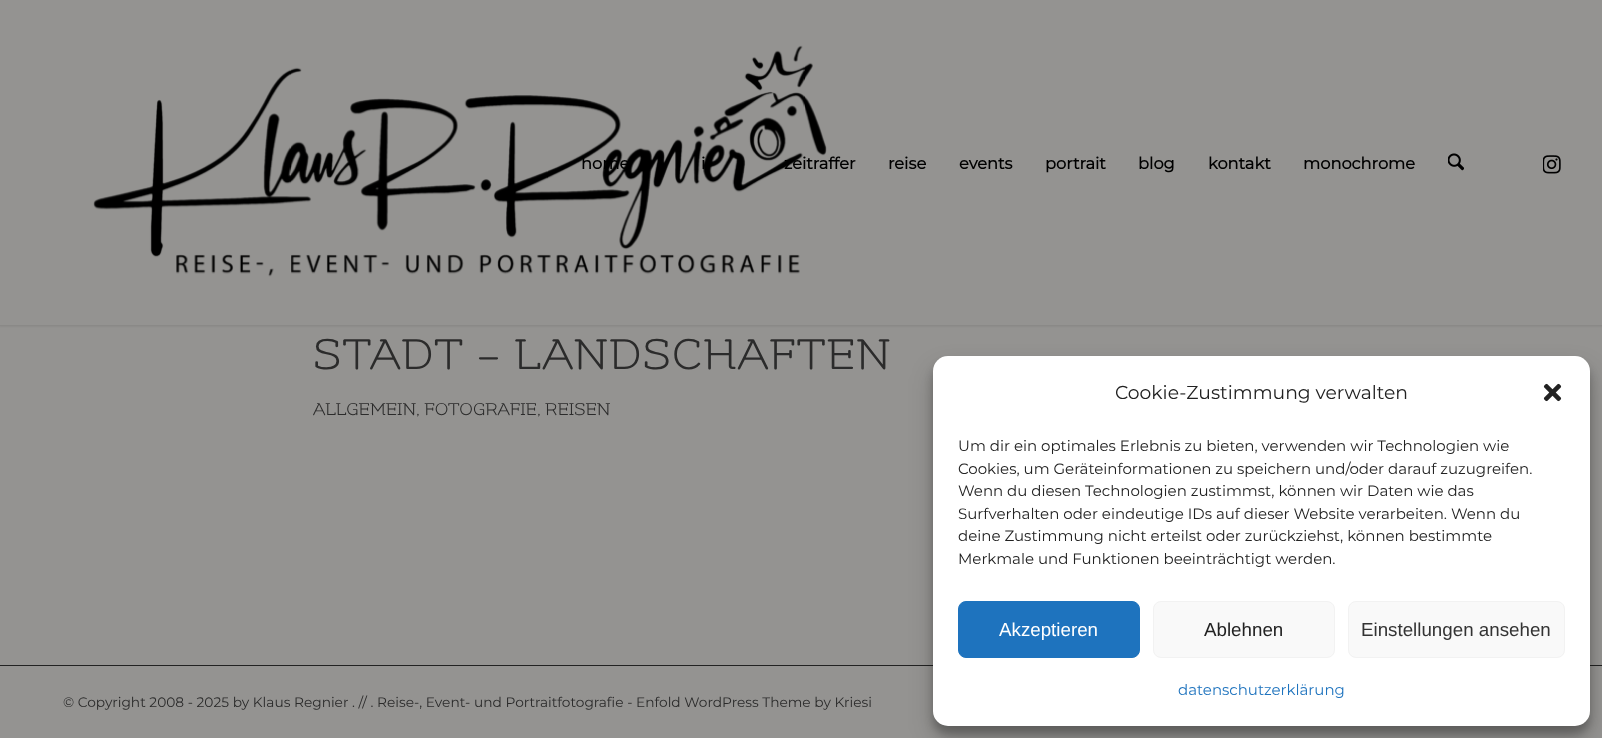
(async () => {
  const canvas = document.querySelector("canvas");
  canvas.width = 1602;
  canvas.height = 738;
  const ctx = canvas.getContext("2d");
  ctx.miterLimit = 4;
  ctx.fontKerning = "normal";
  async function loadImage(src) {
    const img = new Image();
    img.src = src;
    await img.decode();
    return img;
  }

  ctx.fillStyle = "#949391";
  ctx.fillRect(0, 0, 1602, 738);
  ctx.fillStyle = "rgba(0, 0, 0, 0.1)";
  ctx.filter = "blur(1px)";
  ctx.beginPath();
  ctx.rect(-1, -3, 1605, 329);
  ctx.fill();
  ctx.filter = "none";
  ctx.fillStyle = "#949391";
  ctx.fillRect(0, 0, 1602, 325);
  ctx.drawImage(await loadImage("img/1.png"), 93, 45, 734, 232);
  ctx.drawImage(await loadImage("img/2.png"), 1448, 153, 16, 18);
  ctx.drawImage(await loadImage("img/3.png"), 1543, 155, 18, 19);
  ctx.fillStyle = "#222222";
  ctx.fillRect(0, 665, 1602, 1);
  ctx.fillStyle = "rgba(0, 0, 0, 0.23)";
  ctx.filter = "blur(4px)";
  ctx.beginPath();
  ctx.roundRect(933, 364, 657, 370, 15);
  ctx.fill();
  ctx.filter = "none";
  ctx.fillStyle = "rgba(0, 0, 0, 0.19)";
  ctx.filter = "blur(12.5px)";
  ctx.beginPath();
  ctx.roundRect(933, 369, 657, 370, 15);
  ctx.fill();
  ctx.filter = "none";
  ctx.fillStyle = "#ffffff";
  ctx.beginPath();
  ctx.roundRect(933, 356, 657, 370, 15);
  ctx.fill();
  ctx.drawImage(await loadImage("img/4.png"), 1543, 383, 19, 19);
  ctx.fillStyle = "#1e73be";
  ctx.beginPath();
  ctx.roundRect(958.5, 601.5, 181, 56, 7.5);
  ctx.fill();
  ctx.strokeStyle = "#1e73be";
  ctx.stroke();
  ctx.fillStyle = "#f9f9f9";
  ctx.beginPath();
  ctx.roundRect(1153.5, 601.5, 181, 56, 7.5);
  ctx.fill();
  ctx.strokeStyle = "#f2f2f2";
  ctx.stroke();
  ctx.beginPath();
  ctx.roundRect(1348.5, 601.5, 216, 56, 7.5);
  ctx.fill();
  ctx.stroke();
  ctx.font = "bold 16.25px Montserrat";
  ctx.fillStyle = "#000000";
  for (const [text, x, y] of [
    ["home", 581, 169],
    ["i", 701, 169],
    ["zeitraffer", 784, 169],
    ["reise", 888, 169],
    ["events", 959, 169],
    ["portrait", 1045, 169],
    ["blog", 1138, 169],
    ["kontakt", 1208, 169],
    ["monochrome", 1303, 169],
  ]) {
    ctx.fillText(text, x, y);
  }
  ctx.letterSpacing = "1.25px";
  ctx.font = "48.9px Flamenco";
  ctx.fillStyle = "#2b2b2b";
  ctx.fillText("STADT – LANDSCHAFTEN", 313, 369);
  ctx.letterSpacing = "0px";
  ctx.font = "19.5px Flamenco";
  ctx.fillText("ALLGEMEIN, FOTOGRAFIE, REISEN", 313, 415);
  ctx.font = "100 13.75px Montserrat";
  ctx.fillText("© Copyright 2008 - 2025 by Klaus Regnier . // . Reise-, Event- und Portraitfotografie - Enfold WordPress Theme by Kriesi", 63, 707);
  ctx.font = "100 18.75px Montserrat";
  ctx.fillStyle = "#222222";
  ctx.fillText("Cookie-Zustimmung verwalten", 1115, 399);
  ctx.font = "100 15px Montserrat";
  for (const [text, x, y] of [
    ["Um dir ein optimales Erlebnis zu bieten, verwenden wir Technologien wie", 958, 451],
    ["Cookies, um Geräteinformationen zu speichern und/oder darauf zuzugreifen.", 958, 474],
    ["Wenn du diesen Technologien zustimmst, können wir Daten wie das", 958, 496],
    ["Surfverhalten oder eindeutige IDs auf dieser Website verarbeiten. Wenn du", 958, 519],
    ["deine Zustimmung nicht erteilst oder zurückziehst, können bestimmte", 958, 541],
    ["Merkmale und Funktionen beeinträchtigt werden.", 958, 564],
  ]) {
    ctx.fillText(text, x, y);
  }
  ctx.font = "18.75px Liberation Sans";
  ctx.fillStyle = "#ffffff";
  ctx.fillText("Akzeptieren", 999, 636);
  ctx.fillStyle = "#222222";
  ctx.fillText("Ablehnen", 1204, 636);
  ctx.fillStyle = "#333333";
  ctx.fillText("Einstellungen ansehen", 1361, 636);
  ctx.font = "100 15px Montserrat";
  ctx.fillStyle = "#1e73be";
  ctx.fillText("datenschutzerklärung", 1178, 695);
})();
